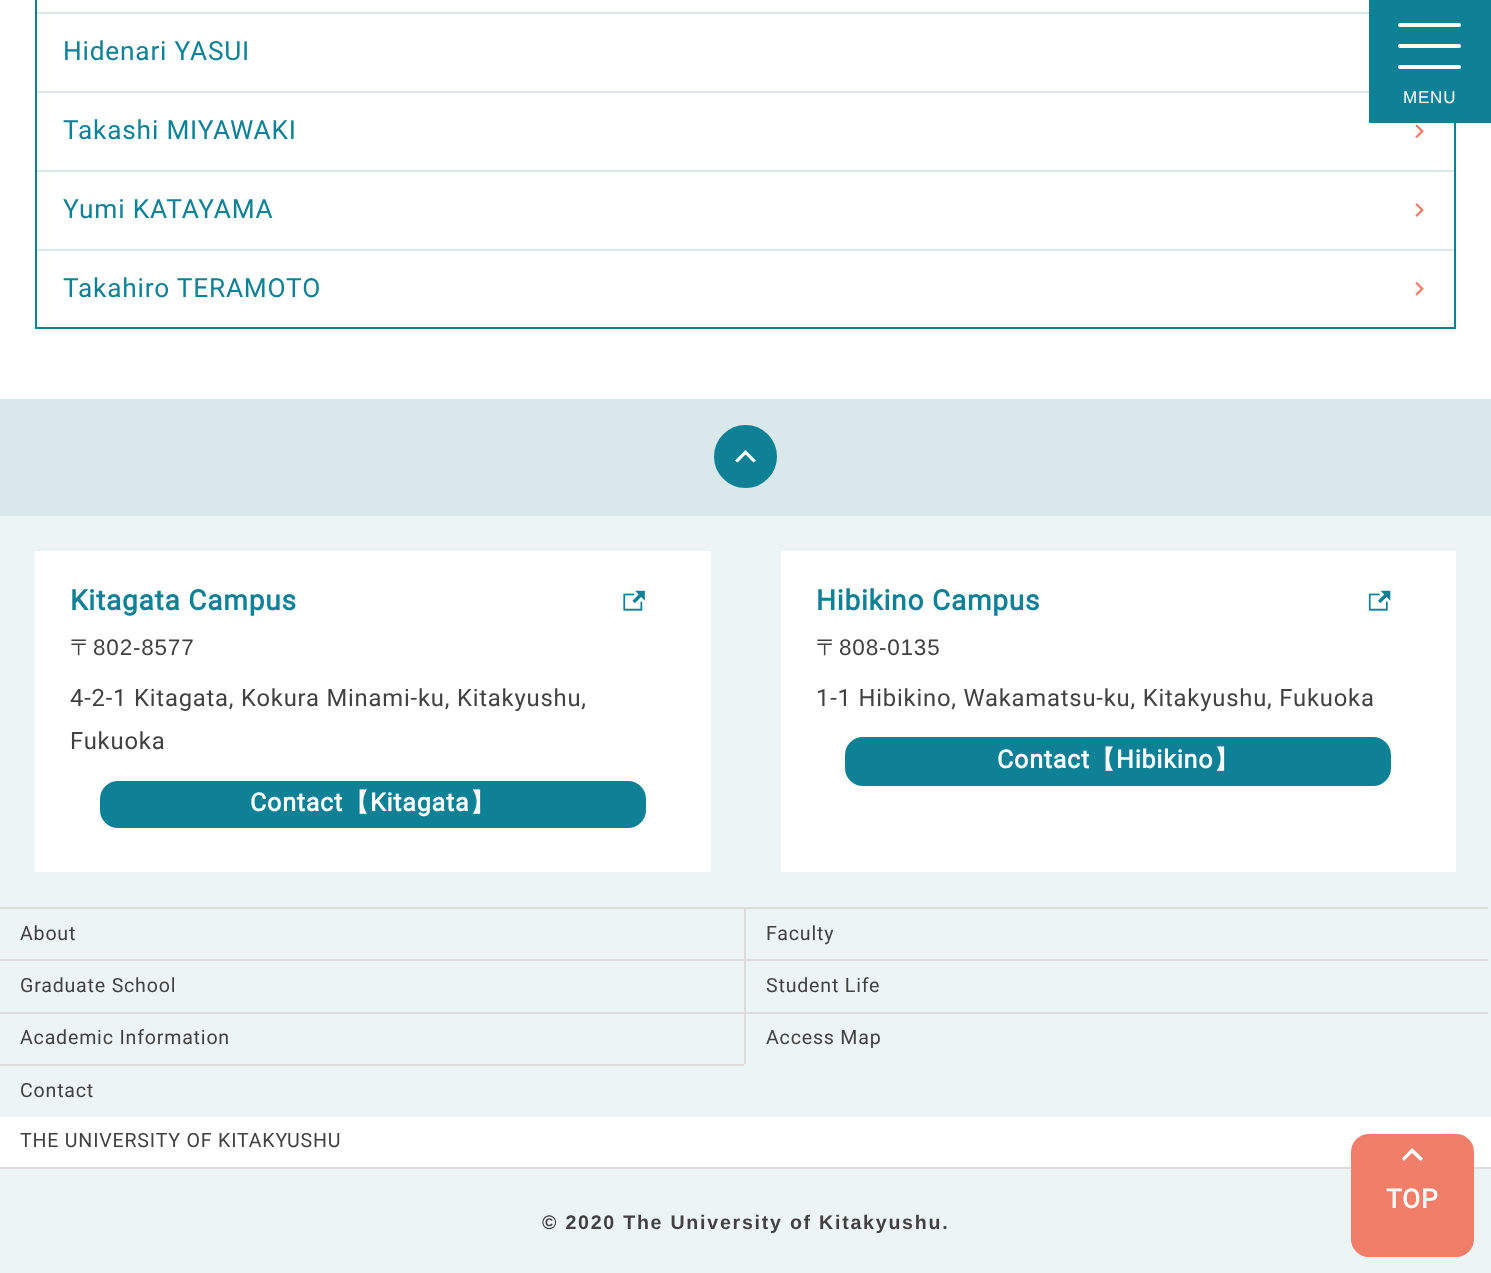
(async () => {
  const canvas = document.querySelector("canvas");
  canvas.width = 1491;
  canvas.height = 1273;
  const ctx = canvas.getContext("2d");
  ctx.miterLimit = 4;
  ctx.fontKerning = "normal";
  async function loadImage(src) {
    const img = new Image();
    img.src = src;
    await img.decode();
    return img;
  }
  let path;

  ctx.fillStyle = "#ffffff";
  ctx.fillRect(0, 0, 1491, 1273);
  ctx.strokeStyle = "#0e8196";
  ctx.lineWidth = 2;
  ctx.strokeRect(36, -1, 1419, 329);
  for (const [x, y, w, h, color] of [
    [37, 12, 1332, 2, "#d9e8ea"],
    [37, 91, 1332, 2, "#d9e8ea"],
    [37, 170, 1417, 2, "#d9e8ea"],
  ]) {
    ctx.fillStyle = color;
    ctx.fillRect(x, y, w, h);
  }
  ctx.drawImage(await loadImage("img/1.png"), 1415, 124, 9, 15);
  ctx.fillRect(37, 249, 1417, 2);
  ctx.drawImage(await loadImage("img/2.png"), 1415, 203, 9, 14);
  ctx.drawImage(await loadImage("img/3.png"), 1415, 281, 9, 15);
  ctx.fillRect(0, 399, 1491, 117);
  ctx.fillStyle = "#0e8196";
  ctx.beginPath();
  ctx.arc(745.5, 456.5, 29, 0, Math.PI * 2);
  ctx.fill();
  ctx.lineWidth = 5;
  ctx.stroke();
  ctx.fillStyle = "#ffffff";
  path = new Path2D("M737.5 462.5L735 460.5L745.5 450L756 460.5L753.5 462.5L745.5 454.5Z");
  ctx.fill(path);
  ctx.fillStyle = "#ecf4f5";
  ctx.fillRect(0, 516, 1491, 757);
  ctx.fillStyle = "#ffffff";
  ctx.fillRect(35, 551, 676, 321);
  ctx.drawImage(await loadImage("img/4.png"), 623, 590, 22, 21);
  ctx.fillStyle = "#0e8196";
  ctx.beginPath();
  ctx.roundRect(101, 782, 544, 45, 17);
  ctx.fill();
  ctx.lineWidth = 2;
  ctx.stroke();
  ctx.fillStyle = "#ffffff";
  ctx.fillRect(781, 551, 675, 321);
  ctx.drawImage(await loadImage("img/5.png"), 1368, 590, 23, 21);
  ctx.fillStyle = "#0e8196";
  ctx.beginPath();
  ctx.roundRect(846, 738, 544, 47, 17);
  ctx.fill();
  ctx.stroke();
  for (const [x, y, w, h, color] of [
    [0, 907, 744, 2, "#dcdcdc"],
    [744, 907, 2, 157, "#dcdcdc"],
    [746, 907, 742, 2, "#dcdcdc"],
    [0, 959, 744, 2, "#dcdcdc"],
    [746, 959, 742, 2, "#dcdcdc"],
    [0, 1012, 744, 2, "#dcdcdc"],
    [746, 1012, 742, 2, "#dcdcdc"],
    [0, 1064, 744, 2, "#dcdcdc"],
    [0, 1117, 1491, 50, "#ffffff"],
    [0, 1167, 1491, 2, "#dcdcdc"],
  ]) {
    ctx.fillStyle = color;
    ctx.fillRect(x, y, w, h);
  }
  ctx.drawImage(await loadImage("img/6.png"), 1443, 1133, 9, 1);
  ctx.fillStyle = "#f17e69";
  ctx.beginPath();
  ctx.roundRect(1351, 1134, 123, 123, 18);
  ctx.fill();
  ctx.fillStyle = "#ffffff";
  path = new Path2D("M1404 1161L1402 1158.5L1412 1148L1423 1158.5L1420.5 1161L1412 1153Z");
  ctx.fill(path);
  ctx.fillStyle = "#0e8196";
  ctx.fillRect(1369, 0, 122, 123);
  ctx.fillStyle = "#ffffff";
  ctx.beginPath();
  ctx.roundRect(1398, 23, 63, 4, 2);
  ctx.fill();
  ctx.beginPath();
  ctx.roundRect(1398, 44, 63, 4, 2);
  ctx.fill();
  ctx.beginPath();
  ctx.roundRect(1398, 65, 63, 4, 2);
  ctx.fill();
  ctx.letterSpacing = "0.8px";
  ctx.font = "26.25px Roboto";
  ctx.fillStyle = "#0e8196";
  for (const [text, x, y] of [
    ["Hidenari YASUI", 63, 60],
    ["Takashi MIYAWAKI", 63, 139],
    ["Yumi KATAYAMA", 63, 218],
    ["Takahiro TERAMOTO", 63, 297],
  ]) {
    ctx.fillText(text, x, y);
  }
  ctx.font = "bold 28px Roboto";
  ctx.fillText("Kitagata Campus", 70, 610);
  ctx.font = "500 22.5px WenQuanYi Zen Hei";
  ctx.fillStyle = "#414141";
  ctx.fillText("〒", 70, 655);
  ctx.font = "22.5px Liberation Sans";
  ctx.fillText("802-8577", 93, 655);
  ctx.font = "23.8px Roboto";
  ctx.fillText("4-2-1 Kitagata, Kokura Minami-ku, Kitakyushu,", 70, 706);
  ctx.fillText("Fukuoka", 70, 749);
  ctx.font = "bold 25px Roboto";
  ctx.fillStyle = "#ffffff";
  ctx.fillText("Contact", 250, 811);
  ctx.font = "bold 25px WenQuanYi Zen Hei";
  ctx.fillText("【", 344, 811);
  ctx.font = "bold 25px Roboto";
  ctx.fillText("Kitagata", 370, 811);
  ctx.font = "bold 25px WenQuanYi Zen Hei";
  ctx.fillText("】", 470, 811);
  ctx.font = "bold 28px Roboto";
  ctx.fillStyle = "#0e8196";
  ctx.fillText("Hibikino Campus", 816, 610);
  ctx.font = "500 22.5px WenQuanYi Zen Hei";
  ctx.fillStyle = "#414141";
  ctx.fillText("〒", 816, 655);
  ctx.font = "22.5px Liberation Sans";
  ctx.fillText("808-0135", 839, 655);
  ctx.font = "23.8px Roboto";
  ctx.fillText("1-1 Hibikino, Wakamatsu-ku, Kitakyushu, Fukuoka", 816, 706);
  ctx.font = "bold 25px Roboto";
  ctx.fillStyle = "#ffffff";
  ctx.fillText("Contact", 997, 768);
  ctx.font = "bold 25px WenQuanYi Zen Hei";
  ctx.fillText("【", 1090, 768);
  ctx.font = "bold 25px Roboto";
  ctx.fillText("Hibikino", 1116, 768);
  ctx.font = "bold 25px WenQuanYi Zen Hei";
  ctx.fillText("】", 1214, 768);
  ctx.font = "19.6px Roboto";
  ctx.fillStyle = "#414141";
  for (const [text, x, y] of [
    ["About", 20, 940],
    ["Faculty", 766, 940],
    ["Graduate School", 20, 992],
    ["Student Life", 766, 992],
    ["Academic Information", 20, 1044],
    ["Access Map", 766, 1044],
    ["Contact", 20, 1097],
    ["THE UNIVERSITY OF KITAKYUSHU", 20, 1147],
  ]) {
    ctx.fillText(text, x, y);
  }
  ctx.letterSpacing = "1.75px";
  ctx.font = "bold 19.6px Liberation Sans";
  ctx.fillText("© 2020 The University of Kitakyushu.", 542, 1229);
  ctx.letterSpacing = "0.8px";
  ctx.font = "bold 26.25px Roboto";
  ctx.fillStyle = "#ffffff";
  ctx.fillText("TOP", 1386, 1208);
  ctx.font = "17px Liberation Sans";
  ctx.fillText("MENU", 1403, 103);
})();
